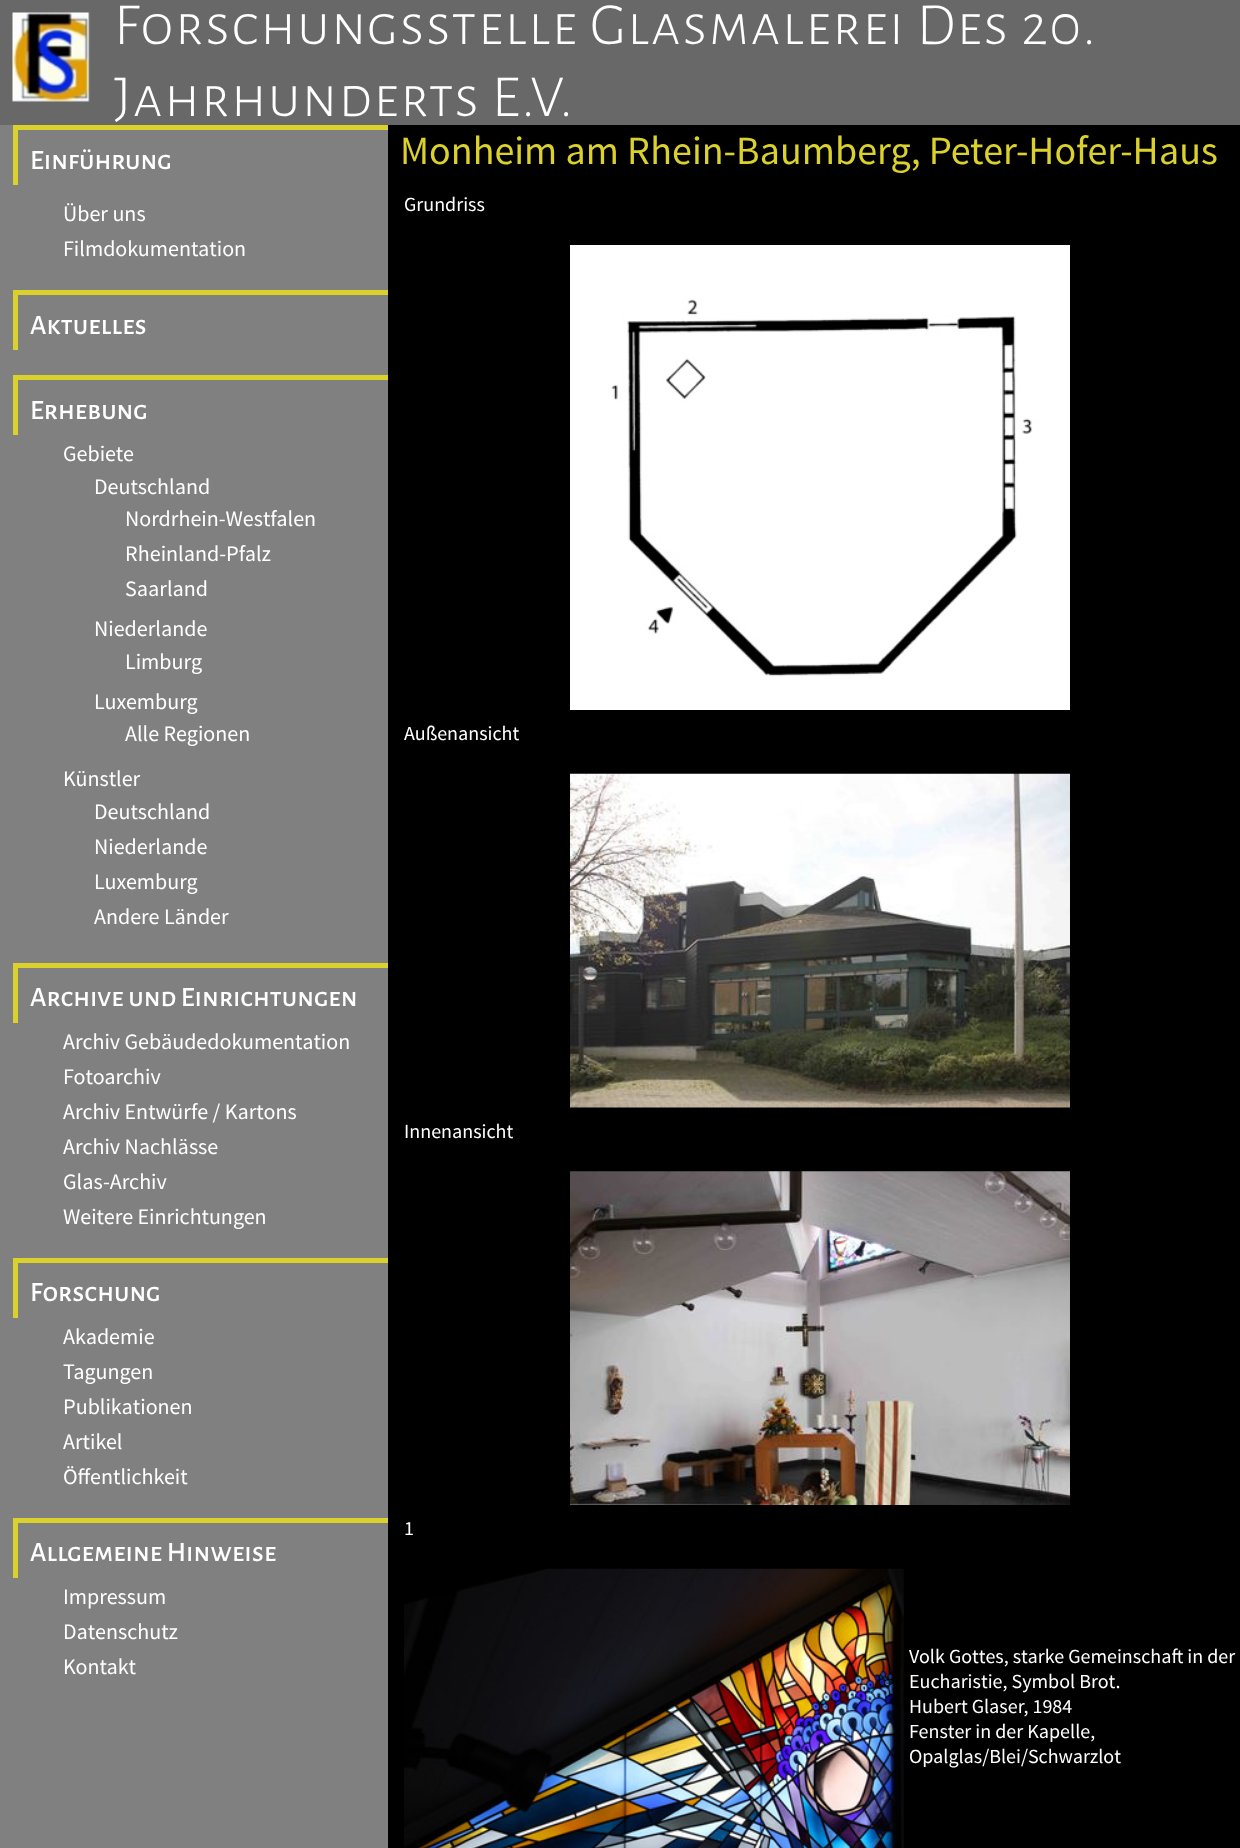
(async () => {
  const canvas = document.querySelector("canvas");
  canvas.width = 1240;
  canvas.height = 1848;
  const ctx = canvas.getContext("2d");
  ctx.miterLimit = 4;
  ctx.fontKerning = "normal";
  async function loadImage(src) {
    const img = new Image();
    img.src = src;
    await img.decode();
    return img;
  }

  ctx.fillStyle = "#808080";
  ctx.fillRect(0, 0, 1240, 1848);
  ctx.fillStyle = "#686868";
  ctx.fillRect(0, 0, 1240, 125);
  ctx.drawImage(await loadImage("img/1.png"), 12, 12, 78, 90);
  for (const [x, y, w, h, color] of [
    [13, 125, 375, 5, "#dbd12d"],
    [13, 125, 5, 60, "#dbd12d"],
    [13, 290, 375, 5, "#dbd12d"],
    [13, 290, 5, 60, "#dbd12d"],
    [13, 375, 375, 5, "#dbd12d"],
    [13, 375, 5, 60, "#dbd12d"],
    [13, 963, 375, 5, "#dbd12d"],
    [13, 963, 5, 60, "#dbd12d"],
    [13, 1258, 375, 5, "#dbd12d"],
    [13, 1258, 5, 60, "#dbd12d"],
    [13, 1518, 375, 5, "#dbd12d"],
    [13, 1518, 5, 60, "#dbd12d"],
    [388, 125, 852, 1723, "#000000"],
  ]) {
    ctx.fillStyle = color;
    ctx.fillRect(x, y, w, h);
  }
  ctx.drawImage(await loadImage("img/2.png"), 570, 245, 500, 465);
  ctx.drawImage(await loadImage("img/3.png"), 570, 773, 500, 335);
  ctx.drawImage(await loadImage("img/4.png"), 570, 1171, 500, 334);
  ctx.drawImage(await loadImage("img/5.png"), 404, 1568, 500, 280);
  ctx.letterSpacing = "1.25px";
  ctx.font = "300 60px Alegreya Sans SC";
  ctx.fillStyle = "#ffffff";
  ctx.fillText("Forschungsstelle Glasmalerei Des 20.", 114, 44);
  ctx.fillText("Jahrhunderts E.V.", 114, 116);
  ctx.letterSpacing = "0px";
  ctx.font = "500 28px Alegreya Sans SC";
  ctx.fillText("Einführung", 30, 169);
  ctx.font = "22px Source Sans Pro";
  ctx.fillText("Über uns", 63, 221);
  ctx.fillText("Filmdokumentation", 63, 256);
  ctx.font = "500 28px Alegreya Sans SC";
  ctx.fillText("Aktuelles", 30, 334);
  ctx.fillText("Erhebung", 30, 419);
  ctx.font = "22px Source Sans Pro";
  for (const [text, x, y] of [
    ["Gebiete", 63, 461],
    ["Deutschland", 94, 494],
    ["Nordrhein-Westfalen", 125, 526],
    ["Rheinland-Pfalz", 125, 561],
    ["Saarland", 125, 596],
    ["Niederlande", 94, 636],
    ["Limburg", 125, 669],
    ["Luxemburg", 94, 709],
    ["Alle Regionen", 125, 741],
    ["Künstler", 63, 786],
    ["Deutschland", 94, 819],
    ["Niederlande", 94, 854],
    ["Luxemburg", 94, 889],
    ["Andere Länder", 94, 924],
  ]) {
    ctx.fillText(text, x, y);
  }
  ctx.font = "500 28px Alegreya Sans SC";
  ctx.fillText("Archive und Einrichtungen", 30, 1006);
  ctx.font = "22px Source Sans Pro";
  for (const [text, x, y] of [
    ["Archiv Gebäudedokumentation", 63, 1049],
    ["Fotoarchiv", 63, 1084],
    ["Archiv Entwürfe / Kartons", 63, 1119],
    ["Archiv Nachlässe", 63, 1154],
    ["Glas-Archiv", 63, 1189],
    ["Weitere Einrichtungen", 63, 1224],
  ]) {
    ctx.fillText(text, x, y);
  }
  ctx.font = "500 28px Alegreya Sans SC";
  ctx.fillText("Forschung", 30, 1301);
  ctx.font = "22px Source Sans Pro";
  for (const [text, x, y] of [
    ["Akademie", 63, 1344],
    ["Tagungen", 63, 1379],
    ["Publikationen", 63, 1414],
    ["Artikel", 63, 1449],
    ["Öffentlichkeit", 63, 1484],
  ]) {
    ctx.fillText(text, x, y);
  }
  ctx.font = "500 28px Alegreya Sans SC";
  ctx.fillText("Allgemeine Hinweise", 30, 1561);
  ctx.font = "22px Source Sans Pro";
  for (const [text, x, y] of [
    ["Impressum", 63, 1604],
    ["Datenschutz", 63, 1639],
    ["Kontakt", 63, 1674],
  ]) {
    ctx.fillText(text, x, y);
  }
  ctx.font = "40px Source Sans Pro";
  ctx.fillStyle = "#dbd12d";
  ctx.fillText("Monheim am Rhein-Baumberg, Peter-Hofer-Haus", 400, 164);
  ctx.font = "20px Source Sans Pro";
  ctx.fillStyle = "#ffffff";
  for (const [text, x, y] of [
    ["Grundriss", 404, 211],
    ["Außenansicht", 404, 740],
    ["Innenansicht", 404, 1138],
    ["1", 404, 1535],
    ["Volk Gottes, starke Gemeinschaft in der", 909, 1663],
    ["Eucharistie, Symbol Brot.", 909, 1688],
    ["Hubert Glaser, 1984", 909, 1713],
    ["Fenster in der Kapelle,", 909, 1738],
    ["Opalglas/Blei/Schwarzlot", 909, 1763],
  ]) {
    ctx.fillText(text, x, y);
  }
})();
